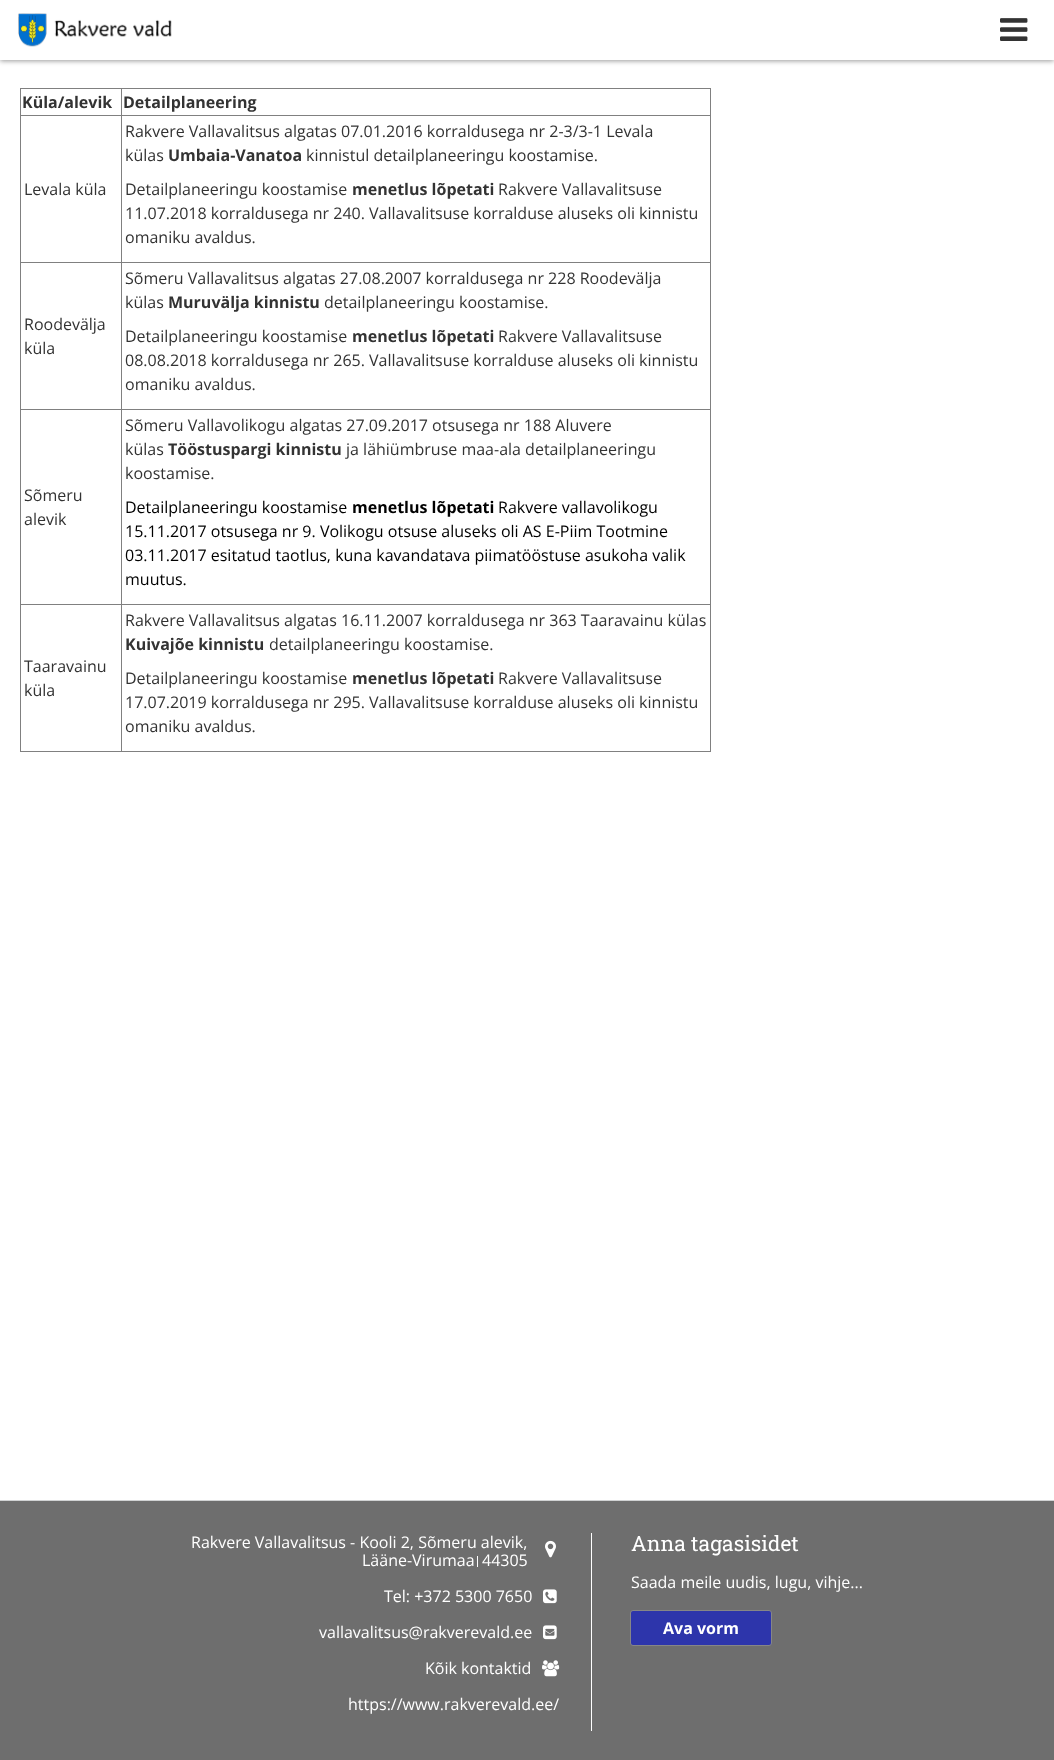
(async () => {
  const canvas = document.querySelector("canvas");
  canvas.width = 1054;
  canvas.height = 1760;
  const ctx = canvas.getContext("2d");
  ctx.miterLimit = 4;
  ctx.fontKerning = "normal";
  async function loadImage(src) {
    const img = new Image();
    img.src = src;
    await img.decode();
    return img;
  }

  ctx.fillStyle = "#ffffff";
  ctx.fillRect(0, 0, 1054, 1760);
  ctx.fillStyle = "rgba(0, 0, 0, 0.4)";
  ctx.filter = "blur(2.5px)";
  ctx.beginPath();
  ctx.rect(0, 1, 1054, 60);
  ctx.fill();
  ctx.filter = "none";
  ctx.fillStyle = "#ffffff";
  ctx.fillRect(0, 0, 1054, 60);
  ctx.drawImage(await loadImage("img/1.png"), 18, 13, 154, 34);
  ctx.drawImage(await loadImage("img/2.png"), 1000, 18, 28, 23);
  for (const [x, y, w, h, color] of [
    [20, 88, 691, 1, "#808080"],
    [710, 88, 1, 664, "#808080"],
    [20, 751, 691, 1, "#808080"],
    [20, 88, 1, 664, "#808080"],
    [121, 115, 590, 1, "#808080"],
    [121, 262, 590, 1, "#808080"],
    [121, 409, 590, 1, "#808080"],
    [121, 604, 590, 1, "#808080"],
    [121, 604, 1, 148, "#808080"],
    [20, 604, 102, 1, "#808080"],
    [121, 409, 1, 196, "#808080"],
    [20, 409, 102, 1, "#808080"],
    [121, 262, 1, 148, "#808080"],
    [20, 262, 102, 1, "#808080"],
    [121, 115, 1, 148, "#808080"],
    [20, 115, 102, 1, "#808080"],
    [121, 88, 1, 28, "#808080"],
    [0, 1501, 1054, 259, "#6e6e6e"],
    [0, 1500, 1054, 1, "#d1d3d4"],
    [591, 1533, 1, 198, "#ffffff"],
    [477, 1556, 1, 11, "#ffffff"],
  ]) {
    ctx.fillStyle = color;
    ctx.fillRect(x, y, w, h);
  }
  ctx.drawImage(await loadImage("img/3.png"), 545, 1540, 11, 18);
  ctx.drawImage(await loadImage("img/4.png"), 543, 1589, 14, 15);
  ctx.drawImage(await loadImage("img/5.png"), 543, 1625, 14, 15);
  ctx.drawImage(await loadImage("img/6.png"), 542, 1660, 18, 17);
  ctx.fillStyle = "#2d35ab";
  ctx.beginPath();
  ctx.roundRect(630.5, 1610.5, 141, 35, 2.5);
  ctx.fill();
  ctx.strokeStyle = "#868686";
  ctx.stroke();
  ctx.font = "bold 16px Open Sans";
  ctx.fillStyle = "#333333";
  ctx.fillText("Küla/alevik", 22, 108);
  ctx.fillText("Detailplaneering", 123, 108);
  ctx.font = "16px Open Sans";
  for (const [text, x, y] of [
    ["Levala küla", 24, 195],
    ["Rakvere Vallavalitsus algatas 07.01.2016 korraldusega nr 2-3/3-1 Levala", 125, 137],
    ["külas", 125, 161],
  ]) {
    ctx.fillText(text, x, y);
  }
  ctx.font = "bold 16px Open Sans";
  ctx.fillText("Umbaia-Vanatoa", 168, 161);
  ctx.font = "16px Open Sans";
  ctx.fillText("kinnistul detailplaneeringu koostamise.", 306, 161);
  ctx.fillText("Detailplaneeringu koostamise", 125, 195);
  ctx.font = "bold 16px Open Sans";
  ctx.fillText("menetlus lõpetati", 352, 195);
  ctx.font = "16px Open Sans";
  for (const [text, x, y] of [
    ["Rakvere Vallavalitsuse", 498, 195],
    ["11.07.2018 korraldusega nr 240. Vallavalitsuse korralduse aluseks oli kinnistu", 125, 219],
    ["omaniku avaldus.", 125, 243],
    ["Roodevälja", 24, 330],
    ["küla", 24, 354],
    ["Sõmeru Vallavalitsus algatas 27.08.2007 korraldusega nr 228 Roodevälja", 125, 284],
    ["külas", 125, 308],
  ]) {
    ctx.fillText(text, x, y);
  }
  ctx.font = "bold 16px Open Sans";
  ctx.fillText("Muruvälja kinnistu", 168, 308);
  ctx.font = "16px Open Sans";
  ctx.fillText("detailplaneeringu koostamise.", 324, 308);
  ctx.fillText("Detailplaneeringu koostamise", 125, 342);
  ctx.font = "bold 16px Open Sans";
  ctx.fillText("menetlus lõpetati", 352, 342);
  ctx.font = "16px Open Sans";
  for (const [text, x, y] of [
    ["Rakvere Vallavalitsuse", 498, 342],
    ["08.08.2018 korraldusega nr 265. Vallavalitsuse korralduse aluseks oli kinnistu", 125, 366],
    ["omaniku avaldus.", 125, 390],
    ["Sõmeru", 24, 501],
    ["alevik", 24, 525],
    ["Sõmeru Vallavolikogu algatas 27.09.2017 otsusega nr 188 Aluvere", 125, 431],
    ["külas", 125, 455],
  ]) {
    ctx.fillText(text, x, y);
  }
  ctx.font = "bold 16px Open Sans";
  ctx.fillText("Tööstuspargi kinnistu", 168, 455);
  ctx.font = "16px Open Sans";
  ctx.fillText("ja lähiümbruse maa-ala detailplaneeringu", 346, 455);
  ctx.fillText("koostamise.", 125, 479);
  ctx.fillStyle = "#000000";
  ctx.fillText("Detailplaneeringu koostamise", 125, 513);
  ctx.font = "bold 16px Open Sans";
  ctx.fillText("menetlus lõpetati", 352, 513);
  ctx.font = "16px Open Sans";
  for (const [text, x, y] of [
    ["Rakvere vallavolikogu", 498, 513],
    ["15.11.2017 otsusega nr 9. Volikogu otsuse aluseks oli AS E-Piim Tootmine", 125, 537],
    ["03.11.2017 esitatud taotlus, kuna kavandatava piimatööstuse asukoha valik", 125, 561],
    ["muutus.", 125, 585],
  ]) {
    ctx.fillText(text, x, y);
  }
  ctx.fillStyle = "#333333";
  for (const [text, x, y] of [
    ["Taaravainu", 24, 672],
    ["küla", 24, 696],
    ["Rakvere Vallavalitsus algatas 16.11.2007 korraldusega nr 363 Taaravainu külas", 125, 626],
  ]) {
    ctx.fillText(text, x, y);
  }
  ctx.font = "bold 16px Open Sans";
  ctx.fillText("Kuivajõe kinnistu", 125, 650);
  ctx.font = "16px Open Sans";
  ctx.fillText("detailplaneeringu koostamise.", 269, 650);
  ctx.fillText("Detailplaneeringu koostamise", 125, 684);
  ctx.font = "bold 16px Open Sans";
  ctx.fillText("menetlus lõpetati", 352, 684);
  ctx.font = "16px Open Sans";
  for (const [text, x, y] of [
    ["Rakvere Vallavalitsuse", 498, 684],
    ["17.07.2019 korraldusega nr 295. Vallavalitsuse korralduse aluseks oli kinnistu", 125, 708],
    ["omaniku avaldus.", 125, 732],
  ]) {
    ctx.fillText(text, x, y);
  }
  ctx.fillStyle = "#ffffff";
  for (const [text, x, y] of [
    ["Rakvere Vallavalitsus - Kooli 2, Sõmeru alevik,", 191, 1548],
    ["Lääne-Virumaa", 362, 1566],
    ["44305", 482, 1566],
    ["Tel: +372 5300 7650", 384, 1602],
    ["vallavalitsus@rakverevald.ee", 319, 1638],
    ["Kõik kontaktid", 425, 1674],
    ["https://www.rakverevald.ee/", 348, 1710],
  ]) {
    ctx.fillText(text, x, y);
  }
  ctx.font = "21px Roboto Slab";
  ctx.fillText("Anna tagasisidet", 631, 1551);
  ctx.font = "16px Open Sans";
  ctx.fillText("Saada meile uudis, lugu, vihje...", 631, 1588);
  ctx.font = "bold 16px Open Sans";
  ctx.fillText("Ava vorm", 663, 1634);
})();
